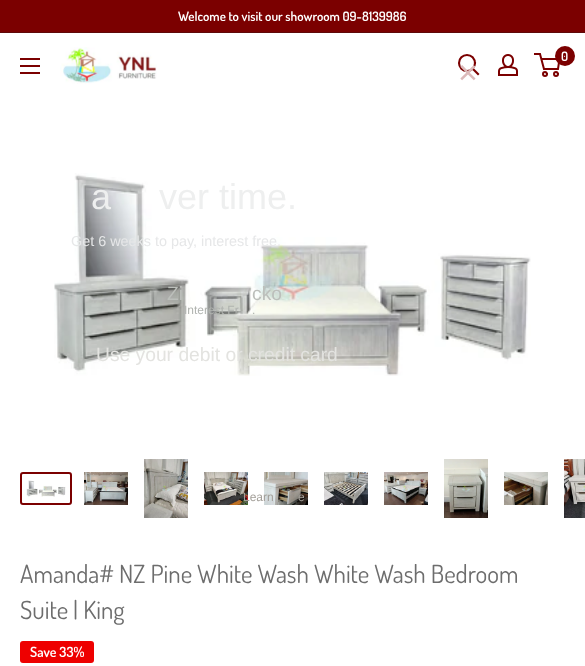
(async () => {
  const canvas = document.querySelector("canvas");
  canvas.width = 585;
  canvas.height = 666;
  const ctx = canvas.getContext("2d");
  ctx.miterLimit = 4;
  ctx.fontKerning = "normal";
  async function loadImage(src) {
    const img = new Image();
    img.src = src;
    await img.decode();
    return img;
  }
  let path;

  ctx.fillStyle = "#ffffff";
  ctx.fillRect(0, 0, 585, 666);
  ctx.fillStyle = "#7b0000";
  ctx.fillRect(0, 0, 585, 32);
  ctx.fillStyle = "#5f0909";
  ctx.fillRect(0, 32, 585, 1);
  ctx.drawImage(await loadImage("img/1.png"), 60, 47, 97, 37);
  path = new Path2D("M478 74L472.5 68.5");
  ctx.strokeStyle = "#7b0000";
  ctx.lineWidth = 2.1;
  ctx.lineCap = "square";
  ctx.stroke(path);
  ctx.beginPath();
  ctx.arc(467, 63, 8, 0, Math.PI * 2);
  ctx.stroke();
  ctx.drawImage(await loadImage("img/2.png"), 498, 54, 20, 22);
  ctx.beginPath();
  ctx.arc(545, 74, 2, 0, Math.PI * 2);
  ctx.lineWidth = 2;
  ctx.stroke();
  ctx.beginPath();
  ctx.arc(556, 74, 2, 0, Math.PI * 2);
  ctx.stroke();
  path = new Path2D("M541.5 59H559.5L558 69H544L540 54H534");
  ctx.lineCap = "butt";
  ctx.stroke(path);
  ctx.fillStyle = "#7b0000";
  ctx.beginPath();
  ctx.arc(565, 56, 10, 0, Math.PI * 2);
  ctx.fill();
  ctx.drawImage(await loadImage("img/3.png"), 20, 58, 20, 16);
  ctx.fillStyle = "#ee0000";
  ctx.beginPath();
  ctx.roundRect(20, 641, 74, 22, 3);
  ctx.fill();
  ctx.drawImage(await loadImage("img/4.png"), 54, 173, 477, 203);
  ctx.beginPath();
  ctx.roundRect(21, 473, 50, 31, 2);
  ctx.stroke();
  ctx.drawImage(await loadImage("img/5.png"), 26, 480, 40, 17);
  ctx.drawImage(await loadImage("img/6.png"), 84, 472, 44, 33);
  ctx.drawImage(await loadImage("img/7.png"), 144, 459, 44, 59);
  ctx.drawImage(await loadImage("img/8.png"), 204, 472, 44, 33);
  ctx.drawImage(await loadImage("img/9.png"), 264, 472, 44, 33);
  ctx.drawImage(await loadImage("img/10.png"), 324, 472, 44, 33);
  ctx.drawImage(await loadImage("img/11.png"), 384, 472, 44, 33);
  ctx.drawImage(await loadImage("img/12.png"), 444, 459, 44, 59);
  ctx.drawImage(await loadImage("img/13.png"), 504, 472, 44, 33);
  ctx.drawImage(await loadImage("img/14.png"), 564, 459, 21, 59);
  ctx.font = "600 13px Dosis";
  ctx.fillStyle = "#ffffff";
  ctx.fillText("Welcome to visit our showroom 09-8139986", 178, 21);
  ctx.fillText("0", 561, 61);
  ctx.font = "34px Liberation Sans";
  ctx.fillStyle = "#dbbaba";
  ctx.fillText("×", 458, 84);
  ctx.font = "36px Liberation Sans";
  ctx.fillStyle = "#eeefef";
  ctx.fillText("a", 91, 209);
  ctx.fillText("ver time.", 159, 209);
  ctx.font = "14.4px Liberation Sans";
  ctx.fillStyle = "#e6e7e8";
  ctx.fillText("Get 6 weeks to pay, interest free.", 71, 246);
  ctx.font = "19.25px Liberation Sans";
  ctx.fillStyle = "#bcbfbb";
  ctx.fillText("Zi", 167, 300);
  ctx.fillText("cko", 252, 300);
  ctx.font = "12px Liberation Sans";
  ctx.fillStyle = "#b0b3af";
  ctx.fillText("Interest Fr", 184, 314);
  ctx.fillText(".", 252, 314);
  ctx.font = "19.25px Liberation Sans";
  ctx.fillStyle = "#e3e3e0";
  ctx.fillText("Use your debit or credit card", 96, 361);
  ctx.font = "12px Liberation Sans";
  ctx.fillStyle = "#a29e98";
  ctx.fillText("Learn", 243, 501);
  ctx.fillText("e", 298, 501);
  ctx.font = "25px Dosis";
  ctx.fillStyle = "#6d6d6d";
  ctx.fillText("Amanda# NZ Pine White Wash White Wash Bedroom", 20, 583);
  ctx.fillText("Suite | King", 20, 619);
  ctx.font = "600 14px Dosis";
  ctx.fillStyle = "#ffffff";
  ctx.fillText("Save 33%", 30, 657);
})();
